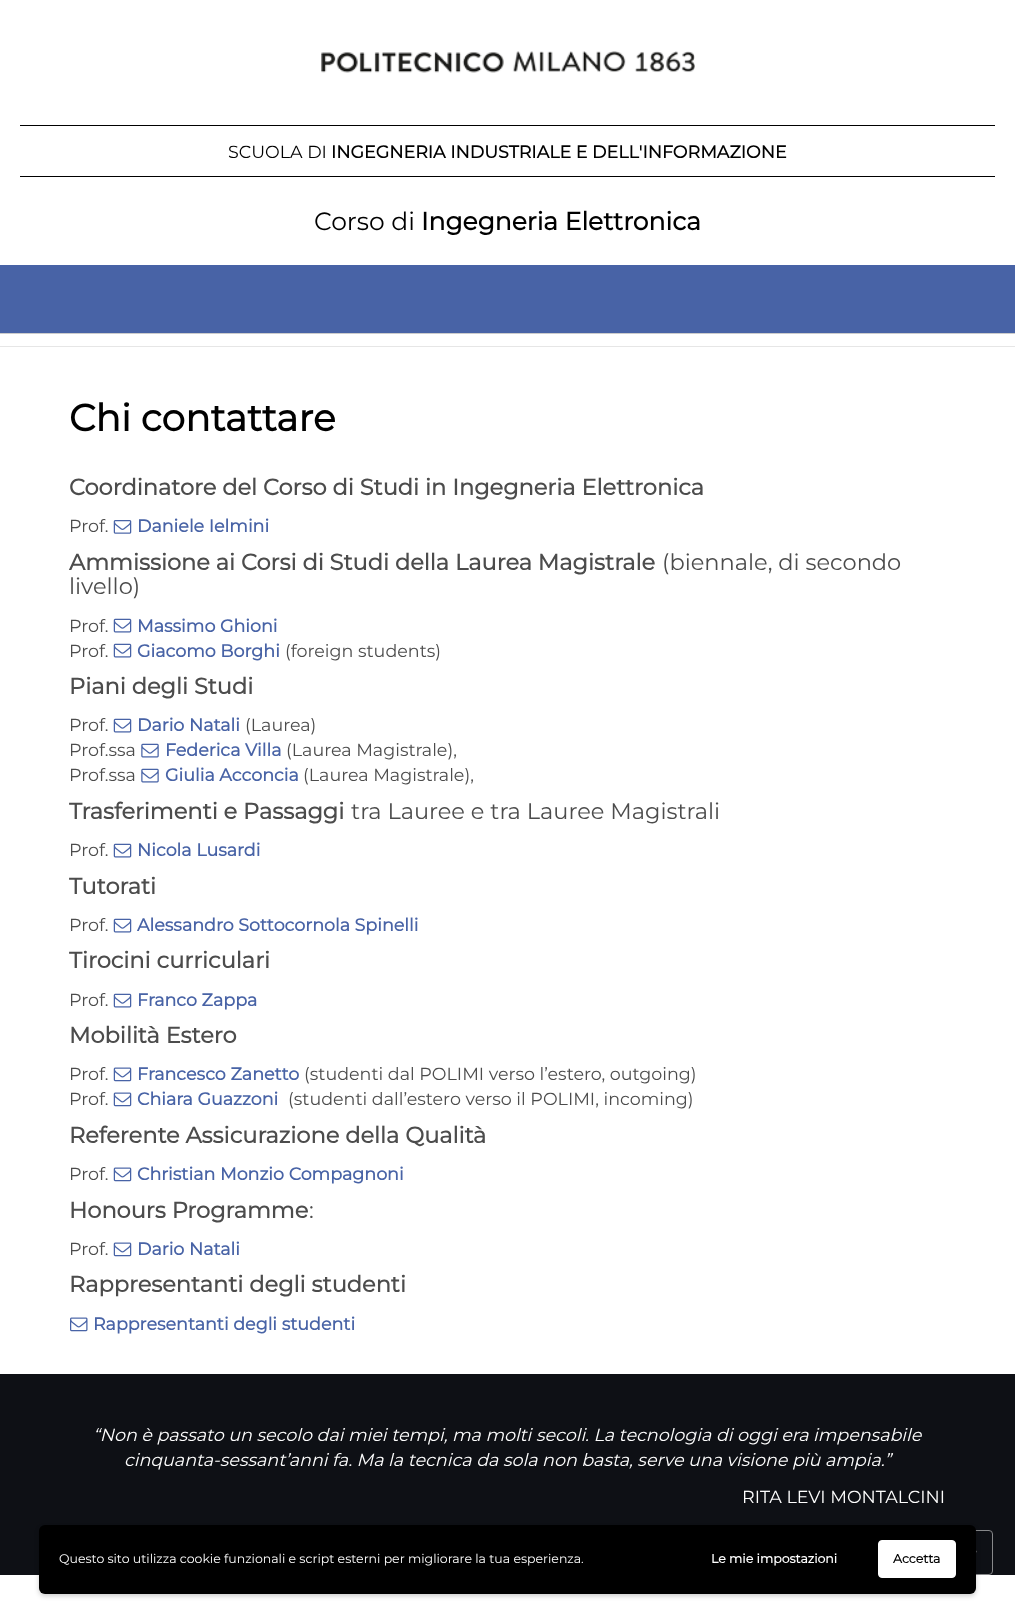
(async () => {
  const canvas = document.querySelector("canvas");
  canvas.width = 1015;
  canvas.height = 1604;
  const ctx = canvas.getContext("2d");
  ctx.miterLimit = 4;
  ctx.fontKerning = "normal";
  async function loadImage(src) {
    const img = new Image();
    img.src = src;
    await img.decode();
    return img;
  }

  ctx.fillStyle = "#ffffff";
  ctx.fillRect(0, 0, 1015, 1604);
  ctx.fillStyle = "#e6e6e6";
  ctx.fillRect(0, 346, 1015, 1);
  ctx.drawImage(await loadImage("img/1.png"), 321, 51, 374, 22);
  for (const [x, y, w, h, color] of [
    [20, 125, 975, 1, "#000000"],
    [20, 176, 975, 1, "#000000"],
    [0, 265, 1015, 68, "#4863a6"],
    [0, 333, 1015, 1, "#cccccc"],
  ]) {
    ctx.fillStyle = color;
    ctx.fillRect(x, y, w, h);
  }
  ctx.drawImage(await loadImage("img/2.png"), 113, 520, 19, 14);
  ctx.drawImage(await loadImage("img/3.png"), 113, 618, 19, 15);
  ctx.drawImage(await loadImage("img/3.png"), 113, 643, 19, 15);
  ctx.drawImage(await loadImage("img/3.png"), 113, 718, 19, 15);
  ctx.drawImage(await loadImage("img/4.png"), 141, 743, 18, 15);
  ctx.drawImage(await loadImage("img/4.png"), 141, 768, 18, 15);
  ctx.drawImage(await loadImage("img/3.png"), 113, 843, 19, 15);
  ctx.drawImage(await loadImage("img/3.png"), 113, 918, 19, 15);
  ctx.drawImage(await loadImage("img/3.png"), 113, 993, 19, 15);
  ctx.drawImage(await loadImage("img/5.png"), 113, 1067, 19, 15);
  ctx.drawImage(await loadImage("img/5.png"), 113, 1092, 19, 15);
  ctx.drawImage(await loadImage("img/5.png"), 113, 1167, 19, 15);
  ctx.drawImage(await loadImage("img/5.png"), 113, 1242, 19, 15);
  ctx.drawImage(await loadImage("img/6.png"), 70, 1317, 18, 15);
  ctx.fillStyle = "#0e1015";
  ctx.fillRect(0, 1374, 1015, 201);
  ctx.beginPath();
  ctx.roundRect(948.5, 1530.5, 44, 44, 3.5);
  ctx.strokeStyle = "#87888a";
  ctx.stroke();
  ctx.drawImage(await loadImage("img/7.png"), 976, 1550, 1, 3);
  ctx.fillStyle = "rgba(0, 0, 0, 0.2)";
  ctx.filter = "blur(2.5px)";
  ctx.beginPath();
  ctx.roundRect(39, 1528, 937, 68, 6);
  ctx.fill();
  ctx.filter = "none";
  ctx.fillStyle = "#000000";
  ctx.beginPath();
  ctx.roundRect(39, 1525, 937, 69, 6);
  ctx.fill();
  ctx.fillStyle = "#ffffff";
  ctx.beginPath();
  ctx.roundRect(878.5, 1540.5, 77, 37, 3.5);
  ctx.fill();
  ctx.strokeStyle = "#ffffff";
  ctx.stroke();
  ctx.font = "100 17.5px Montserrat";
  ctx.fillStyle = "#000000";
  ctx.fillText("SCUOLA DI", 228, 158);
  ctx.font = "bold 17.5px Montserrat";
  ctx.fillText("INGEGNERIA INDUSTRIALE E DELL'INFORMAZIONE", 331, 158);
  ctx.font = "100 25px Montserrat";
  ctx.fillText("Corso di", 314, 230);
  ctx.font = "bold 25px Montserrat";
  ctx.fillText("Ingegneria Elettronica", 421, 230);
  ctx.font = "bold 37.5px Montserrat";
  ctx.fillText("Chi contattare", 69, 431);
  ctx.font = "bold 22.5px Montserrat";
  ctx.fillStyle = "#4c4c4c";
  ctx.fillText("Coordinatore del Corso di Studi in Ingegneria Elettronica", 69, 495);
  ctx.font = "100 17.5px Montserrat";
  ctx.fillText("Prof.", 69, 532);
  ctx.font = "bold 17.5px Montserrat";
  ctx.fillStyle = "#4863a6";
  ctx.fillText("Daniele Ielmini", 137, 532);
  ctx.font = "bold 22.5px Montserrat";
  ctx.fillStyle = "#4c4c4c";
  ctx.fillText("Ammissione ai Corsi di Studi della Laurea Magistrale", 69, 570);
  ctx.font = "100 22.5px Montserrat";
  ctx.fillText("(biennale, di secondo", 662, 570);
  ctx.fillText("livello)", 69, 594);
  ctx.font = "100 17.5px Montserrat";
  ctx.fillText("Prof.", 69, 632);
  ctx.font = "bold 17.5px Montserrat";
  ctx.fillStyle = "#4863a6";
  ctx.fillText("Massimo Ghioni", 137, 632);
  ctx.font = "100 17.5px Montserrat";
  ctx.fillStyle = "#4c4c4c";
  ctx.fillText("Prof.", 69, 657);
  ctx.font = "bold 17.5px Montserrat";
  ctx.fillStyle = "#4863a6";
  ctx.fillText("Giacomo Borghi", 137, 657);
  ctx.font = "100 17.5px Montserrat";
  ctx.fillStyle = "#4c4c4c";
  ctx.fillText("(foreign students)", 285, 657);
  ctx.font = "bold 22.5px Montserrat";
  ctx.fillText("Piani degli Studi", 69, 694);
  ctx.font = "100 17.5px Montserrat";
  ctx.fillText("Prof.", 69, 731);
  ctx.font = "bold 17.5px Montserrat";
  ctx.fillStyle = "#4863a6";
  ctx.fillText("Dario Natali", 137, 731);
  ctx.font = "100 17.5px Montserrat";
  ctx.fillStyle = "#4c4c4c";
  ctx.fillText("(Laurea)", 245, 731);
  ctx.fillText("Prof.ssa", 69, 756);
  ctx.font = "bold 17.5px Montserrat";
  ctx.fillStyle = "#4863a6";
  ctx.fillText("Federica Villa", 165, 756);
  ctx.font = "100 17.5px Montserrat";
  ctx.fillStyle = "#4c4c4c";
  ctx.fillText("(Laurea Magistrale),", 286, 756);
  ctx.fillText("Prof.ssa", 69, 781);
  ctx.font = "bold 17.5px Montserrat";
  ctx.fillStyle = "#4863a6";
  ctx.fillText("Giulia Acconcia", 165, 781);
  ctx.font = "100 17.5px Montserrat";
  ctx.fillStyle = "#4c4c4c";
  ctx.fillText("(Laurea Magistrale),", 303, 781);
  ctx.font = "bold 22.5px Montserrat";
  ctx.fillText("Trasferimenti e Passaggi", 69, 819);
  ctx.font = "100 22.5px Montserrat";
  ctx.fillText("tra Lauree e tra Lauree Magistrali", 351, 819);
  ctx.font = "100 17.5px Montserrat";
  ctx.fillText("Prof.", 69, 856);
  ctx.font = "bold 17.5px Montserrat";
  ctx.fillStyle = "#4863a6";
  ctx.fillText("Nicola Lusardi", 137, 856);
  ctx.font = "bold 22.5px Montserrat";
  ctx.fillStyle = "#4c4c4c";
  ctx.fillText("Tutorati", 69, 894);
  ctx.font = "100 17.5px Montserrat";
  ctx.fillText("Prof.", 69, 931);
  ctx.font = "bold 17.5px Montserrat";
  ctx.fillStyle = "#4863a6";
  ctx.fillText("Alessandro Sottocornola Spinelli", 137, 931);
  ctx.font = "bold 22.5px Montserrat";
  ctx.fillStyle = "#4c4c4c";
  ctx.fillText("Tirocini curriculari", 69, 968);
  ctx.font = "100 17.5px Montserrat";
  ctx.fillText("Prof.", 69, 1006);
  ctx.font = "bold 17.5px Montserrat";
  ctx.fillStyle = "#4863a6";
  ctx.fillText("Franco Zappa", 137, 1006);
  ctx.font = "bold 22.5px Montserrat";
  ctx.fillStyle = "#4c4c4c";
  ctx.fillText("Mobilità Estero", 69, 1043);
  ctx.font = "100 17.5px Montserrat";
  ctx.fillText("Prof.", 69, 1080);
  ctx.font = "bold 17.5px Montserrat";
  ctx.fillStyle = "#4863a6";
  ctx.fillText("Francesco Zanetto", 137, 1080);
  ctx.font = "100 17.5px Montserrat";
  ctx.fillStyle = "#4c4c4c";
  ctx.fillText("(studenti dal POLIMI verso l’estero, outgoing)", 304, 1080);
  ctx.fillText("Prof.", 69, 1105);
  ctx.font = "bold 17.5px Montserrat";
  ctx.fillStyle = "#4863a6";
  ctx.fillText("Chiara Guazzoni", 137, 1105);
  ctx.font = "100 17.5px Montserrat";
  ctx.fillStyle = "#4c4c4c";
  ctx.fillText("(studenti dall’estero verso il POLIMI, incoming)", 288, 1105);
  ctx.font = "bold 22.5px Montserrat";
  ctx.fillText("Referente Assicurazione della Qualità", 69, 1143);
  ctx.font = "100 17.5px Montserrat";
  ctx.fillText("Prof.", 69, 1180);
  ctx.font = "bold 17.5px Montserrat";
  ctx.fillStyle = "#4863a6";
  ctx.fillText("Christian Monzio Compagnoni", 137, 1180);
  ctx.font = "bold 22.5px Montserrat";
  ctx.fillStyle = "#4c4c4c";
  ctx.fillText("Honours Programme", 69, 1218);
  ctx.font = "100 22.5px Montserrat";
  ctx.fillText(":", 309, 1218);
  ctx.font = "100 17.5px Montserrat";
  ctx.fillText("Prof.", 69, 1255);
  ctx.font = "bold 17.5px Montserrat";
  ctx.fillStyle = "#4863a6";
  ctx.fillText("Dario Natali", 137, 1255);
  ctx.font = "bold 22.5px Montserrat";
  ctx.fillStyle = "#4c4c4c";
  ctx.fillText("Rappresentanti degli studenti", 69, 1292);
  ctx.font = "bold 17.5px Montserrat";
  ctx.fillStyle = "#4863a6";
  ctx.fillText("Rappresentanti degli studenti", 93, 1330);
  ctx.font = "italic 100 17.5px Montserrat";
  ctx.fillStyle = "#fefefe";
  ctx.fillText("“Non è passato un secolo dai miei tempi, ma molti secoli. La tecnologia di oggi era impensabile", 93, 1441);
  ctx.fillText("cinquanta-sessant’anni fa. Ma la tecnica da sola non basta, serve una visione più ampia.”", 124, 1466);
  ctx.font = "100 17.5px Montserrat";
  ctx.fillText("RITA LEVI MONTALCINI", 742, 1503);
  ctx.font = "100 12.5px Montserrat";
  ctx.fillText("Questo sito utilizza cookie funzionali e script esterni per migliorare la tua esperienza.", 59, 1563);
  ctx.font = "bold 12.5px Montserrat";
  ctx.fillText("Le mie impostazioni", 711, 1563);
  ctx.fillStyle = "#000000";
  ctx.fillText("Accetta", 893, 1563);
})();
